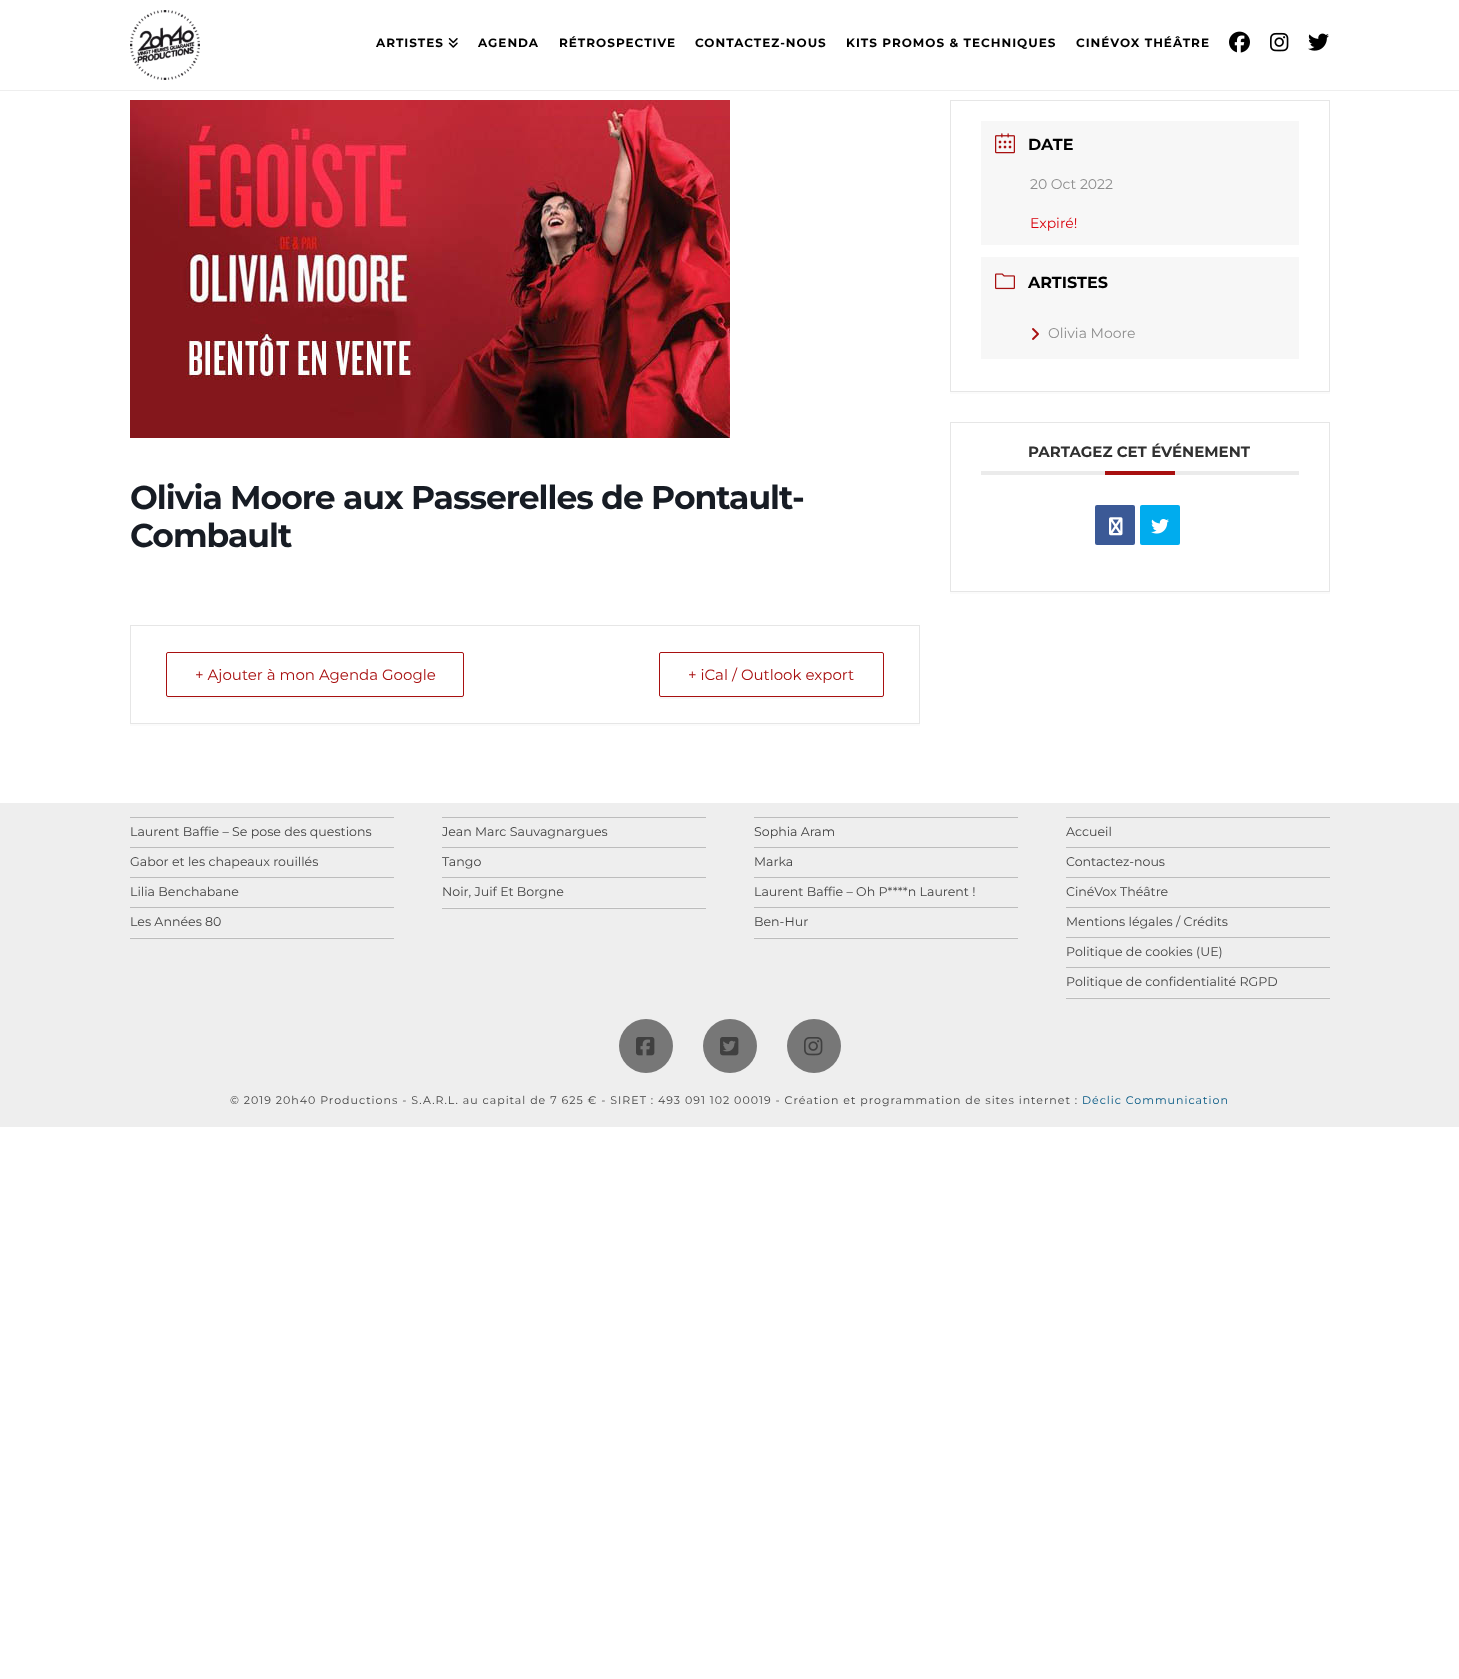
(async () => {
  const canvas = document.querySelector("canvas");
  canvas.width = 1459;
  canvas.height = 1679;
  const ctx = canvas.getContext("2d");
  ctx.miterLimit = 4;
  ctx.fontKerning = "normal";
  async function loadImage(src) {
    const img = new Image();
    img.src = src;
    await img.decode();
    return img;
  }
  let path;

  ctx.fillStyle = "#ffffff";
  ctx.fillRect(0, 0, 1459, 1679);
  ctx.fillStyle = "#eeeeee";
  ctx.fillRect(0, 90, 1459, 1);
  ctx.drawImage(await loadImage("img/1.png"), 130, 10, 70, 70);
  ctx.drawImage(await loadImage("img/2.png"), 448, 38, 10, 10);
  ctx.drawImage(await loadImage("img/3.png"), 1229, 31, 21, 22);
  ctx.drawImage(await loadImage("img/4.png"), 1270, 32, 19, 20);
  ctx.drawImage(await loadImage("img/5.png"), 1308, 33, 21, 18);
  ctx.fillStyle = "#fbfbfb";
  ctx.fillRect(950, 392, 380, 2);
  ctx.strokeStyle = "#e6e6e6";
  ctx.strokeRect(950.5, 100.5, 379, 291);
  ctx.fillStyle = "#f7f7f7";
  ctx.fillRect(981, 121, 318, 124);
  ctx.drawImage(await loadImage("img/6.png"), 995, 133, 20, 21);
  ctx.fillRect(981, 257, 318, 102);
  ctx.drawImage(await loadImage("img/7.png"), 995, 273, 20, 17);
  ctx.drawImage(await loadImage("img/8.png"), 1032, 328, 7, 12);
  ctx.fillStyle = "#fbfbfb";
  ctx.fillRect(950, 592, 380, 2);
  ctx.strokeRect(950.5, 422.5, 379, 169);
  ctx.fillStyle = "#ebebeb";
  ctx.fillRect(981, 471, 318, 4);
  ctx.fillStyle = "#a81010";
  ctx.fillRect(1105, 471, 70, 4);
  ctx.fillStyle = "#3b5996";
  ctx.beginPath();
  ctx.roundRect(1095, 505, 40, 40, 2);
  ctx.fill();
  ctx.drawImage(await loadImage("img/9.png"), 1109, 517, 14, 19);
  ctx.fillStyle = "#00acee";
  ctx.beginPath();
  ctx.roundRect(1140, 505, 40, 40, 2);
  ctx.fill();
  ctx.drawImage(await loadImage("img/10.png"), 1151, 519, 18, 15);
  ctx.drawImage(await loadImage("img/11.png"), 130, 100, 600, 338);
  ctx.fillStyle = "#fbfbfb";
  ctx.fillRect(130, 724, 790, 2);
  ctx.strokeRect(130.5, 625.5, 789, 98);
  ctx.fillStyle = "#f7f7f7";
  path = new Path2D("M166 695V697C166 698 167 699 168 699H462C463 699 464 698 464 697V695C464 696 463 697 462 697H168C167 697 166 696 166 695Z");
  ctx.fill(path);
  ctx.beginPath();
  ctx.roundRect(166.5, 652.5, 297, 44, 1.5);
  ctx.strokeStyle = "#a81010";
  ctx.stroke();
  path = new Path2D("M659 695C659 697 659 699 661 699H882C884 699 884 696 884 695C884 696 883 697 882 697H661C660 697 659 696 659 695Z");
  ctx.fill(path);
  ctx.beginPath();
  ctx.roundRect(659.5, 652.5, 224, 44, 1.5);
  ctx.stroke();
  for (const [x, y, w, h, color] of [
    [0, 803, 1459, 324, "#eeeeee"],
    [130, 938, 264, 1, "#bcbcbc"],
    [130, 937, 264, 1, "#f2f2f2"],
    [130, 817, 264, 1, "#bcbcbc"],
    [130, 847, 264, 1, "#bcbcbc"],
    [130, 877, 264, 1, "#bcbcbc"],
    [130, 907, 264, 1, "#bcbcbc"],
    [442, 908, 264, 1, "#bcbcbc"],
    [442, 907, 264, 1, "#f2f2f2"],
    [442, 817, 264, 1, "#bcbcbc"],
    [442, 847, 264, 1, "#bcbcbc"],
    [442, 877, 264, 1, "#bcbcbc"],
    [754, 938, 264, 1, "#bcbcbc"],
    [754, 937, 264, 1, "#f2f2f2"],
    [754, 817, 264, 1, "#bcbcbc"],
    [754, 847, 264, 1, "#bcbcbc"],
    [754, 877, 264, 1, "#bcbcbc"],
    [754, 907, 264, 1, "#bcbcbc"],
    [1066, 998, 264, 1, "#bcbcbc"],
    [1066, 997, 264, 1, "#f2f2f2"],
    [1066, 817, 264, 1, "#bcbcbc"],
    [1066, 847, 264, 1, "#bcbcbc"],
    [1066, 877, 264, 1, "#bcbcbc"],
    [1066, 907, 264, 1, "#bcbcbc"],
    [1066, 937, 264, 1, "#bcbcbc"],
    [1066, 967, 264, 1, "#bcbcbc"],
  ]) {
    ctx.fillStyle = color;
    ctx.fillRect(x, y, w, h);
  }
  ctx.fillStyle = "#777777";
  ctx.beginPath();
  ctx.arc(646, 1046, 27, 0, Math.PI * 2);
  ctx.fill();
  ctx.drawImage(await loadImage("img/12.png"), 636, 1037, 19, 19);
  ctx.beginPath();
  ctx.arc(730, 1046, 27, 0, Math.PI * 2);
  ctx.fill();
  ctx.drawImage(await loadImage("img/13.png"), 720, 1037, 19, 19);
  ctx.beginPath();
  ctx.arc(814, 1046, 27, 0, Math.PI * 2);
  ctx.fill();
  ctx.drawImage(await loadImage("img/14.png"), 804, 1037, 19, 19);
  ctx.letterSpacing = "1px";
  ctx.font = "bold 12px Montserrat";
  ctx.fillStyle = "#000000";
  for (const [text, x, y] of [
    ["ARTISTES", 376, 47],
    ["AGENDA", 478, 47],
    ["RÉTROSPECTIVE", 559, 47],
    ["CONTACTEZ-NOUS", 695, 47],
    ["KITS PROMOS & TECHNIQUES", 846, 47],
    ["CINÉVOX THÉÂTRE", 1076, 47],
  ]) {
    ctx.fillText(text, x, y);
  }
  ctx.letterSpacing = "0px";
  ctx.font = "bold 16px Montserrat";
  ctx.fillText("DATE", 1028, 150);
  ctx.font = "14px Montserrat";
  ctx.fillStyle = "#8d8d8d";
  ctx.fillText("20 Oct 2022", 1030, 189);
  ctx.fillStyle = "#d8000c";
  ctx.fillText("Expiré!", 1030, 228);
  ctx.font = "bold 16px Montserrat";
  ctx.fillStyle = "#000000";
  ctx.fillText("ARTISTES", 1028, 288);
  ctx.font = "14px Montserrat";
  ctx.fillStyle = "#8d8d8d";
  ctx.fillText("Olivia Moore", 1048, 338);
  ctx.font = "bold 15px Montserrat";
  ctx.fillStyle = "#313131";
  ctx.fillText("PARTAGEZ CET ÉVÉNEMENT", 1028, 457);
  ctx.letterSpacing = "-1px";
  ctx.font = "bold 33px Montserrat";
  ctx.fillStyle = "#171c24";
  ctx.fillText("Olivia Moore aux Passerelles de Pontault-", 130, 509);
  ctx.fillText("Combault", 130, 547);
  ctx.letterSpacing = "0px";
  ctx.font = "15px Montserrat";
  ctx.fillStyle = "#a81010";
  ctx.fillText("+ Ajouter à mon Agenda Google", 195, 680);
  ctx.fillText("+ iCal / Outlook export", 688, 680);
  ctx.font = "12.6px Montserrat";
  ctx.fillStyle = "#444444";
  for (const [text, x, y] of [
    ["Laurent Baffie – Se pose des questions", 130, 836],
    ["Gabor et les chapeaux rouillés", 130, 866],
    ["Lilia Benchabane", 130, 896],
    ["Les Années 80", 130, 926],
    ["Jean Marc Sauvagnargues", 442, 836],
    ["Tango", 442, 866],
    ["Noir, Juif Et Borgne", 442, 896],
    ["Sophia Aram", 754, 836],
    ["Marka", 754, 866],
    ["Laurent Baffie – Oh P****n Laurent !", 754, 896],
    ["Ben-Hur", 754, 926],
    ["Accueil", 1066, 836],
    ["Contactez-nous", 1066, 866],
    ["CinéVox Théâtre", 1066, 896],
    ["Mentions légales / Crédits", 1066, 926],
    ["Politique de cookies (UE)", 1066, 956],
    ["Politique de confidentialité RGPD", 1066, 986],
  ]) {
    ctx.fillText(text, x, y);
  }
  ctx.letterSpacing = "1px";
  ctx.font = "11px Montserrat";
  ctx.fillText("© 2019 20h40 Productions - S.A.R.L. au capital de 7 625 € - SIRET : 493 091 102 00019 - Création et programmation de sites internet :", 230, 1104);
  ctx.fillStyle = "#005581";
  ctx.fillText("Déclic Communication", 1082, 1104);
})();
